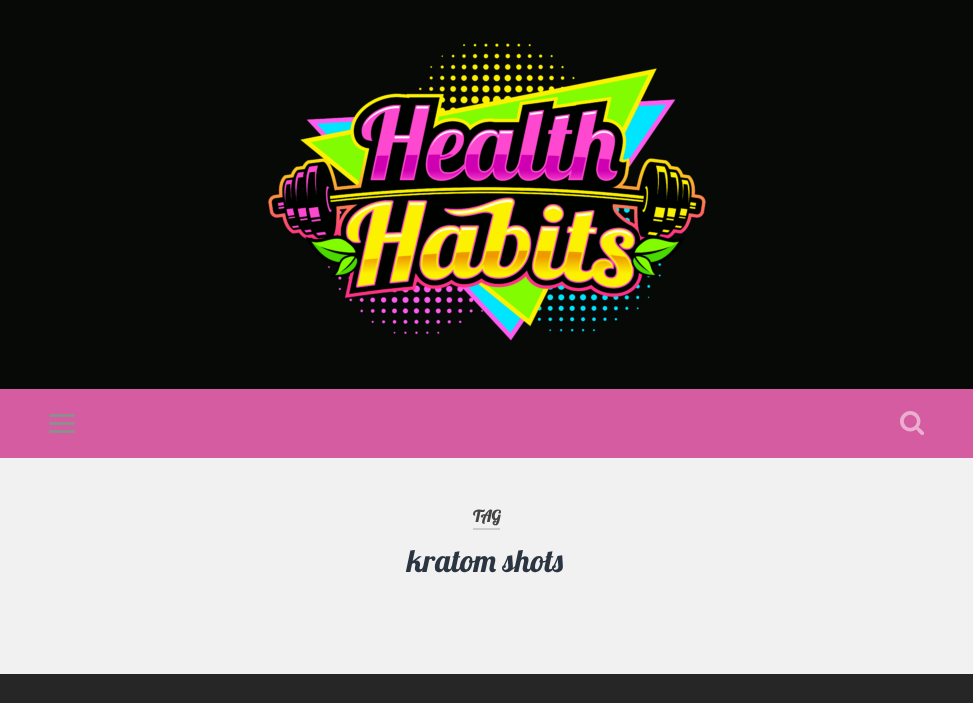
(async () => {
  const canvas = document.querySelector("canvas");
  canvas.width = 973;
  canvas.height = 703;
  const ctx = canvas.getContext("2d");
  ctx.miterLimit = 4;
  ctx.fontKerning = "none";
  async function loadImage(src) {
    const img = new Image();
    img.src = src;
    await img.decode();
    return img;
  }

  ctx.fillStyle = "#f1f1f1";
  ctx.fillRect(0, 0, 973, 703);
  ctx.fillStyle = "#070907";
  ctx.fillRect(0, 0, 973, 389);
  ctx.drawImage(await loadImage("img/1.png"), 268, 43, 438, 298);
  ctx.fillStyle = "#d65ca2";
  ctx.fillRect(0, 389, 973, 69);
  ctx.fillStyle = "#8e8e8e";
  ctx.beginPath();
  ctx.roundRect(49, 414, 26, 3, 1);
  ctx.fill();
  ctx.beginPath();
  ctx.roundRect(49, 422, 26, 3, 1);
  ctx.fill();
  ctx.beginPath();
  ctx.roundRect(49, 430, 26, 3, 1);
  ctx.fill();
  ctx.drawImage(await loadImage("img/2.png"), 900, 411, 24, 24);
  ctx.fillStyle = "#cccccc";
  ctx.fillRect(473, 528, 27, 2);
  ctx.fillStyle = "#262626";
  ctx.fillRect(0, 674, 973, 29);
  ctx.font = "bold 16px Lobster";
  ctx.fillStyle = "#444444";
  ctx.fillText("TAG", 473, 522);
  ctx.font = "31.5px Lobster";
  ctx.fillStyle = "#2b3542";
  ctx.fillText("kratom shots", 407, 572);
})();
